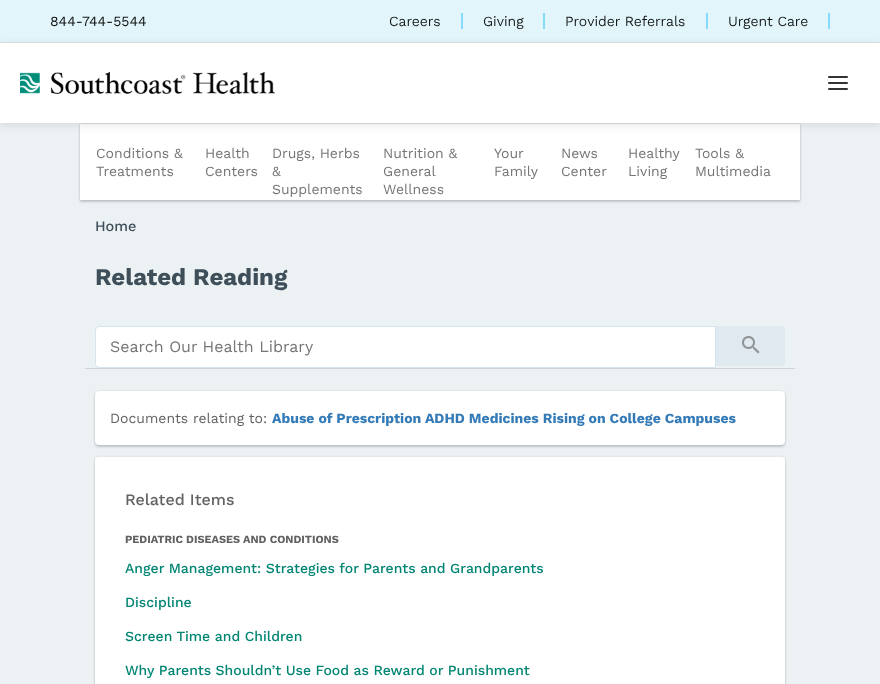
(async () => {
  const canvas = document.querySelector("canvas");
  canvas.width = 880;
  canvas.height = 684;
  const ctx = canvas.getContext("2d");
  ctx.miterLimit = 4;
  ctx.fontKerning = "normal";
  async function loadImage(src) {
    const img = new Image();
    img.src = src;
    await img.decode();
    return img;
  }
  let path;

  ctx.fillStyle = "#ecf1f4";
  ctx.fillRect(0, 0, 880, 684);
  for (const [x, y, w, h, color] of [
    [0, 0, 880, 42, "#e1f5fa"],
    [0, 42, 880, 1, "#e0e0e0"],
    [461, 13, 2, 16, "#86dbfa"],
    [543, 13, 2, 16, "#86dbfa"],
    [706, 13, 2, 16, "#86dbfa"],
    [828, 13, 2, 16, "#86dbfa"],
  ]) {
    ctx.fillStyle = color;
    ctx.fillRect(x, y, w, h);
  }
  ctx.fillStyle = "rgba(0, 0, 0, 0.12)";
  ctx.filter = "blur(1px)";
  ctx.beginPath();
  ctx.rect(80, 123, 720, 77);
  ctx.fill();
  ctx.filter = "none";
  ctx.fillStyle = "rgba(0, 0, 0, 0.16)";
  ctx.filter = "blur(1px)";
  ctx.beginPath();
  ctx.rect(80, 125, 720, 77);
  ctx.fill();
  ctx.filter = "none";
  ctx.fillStyle = "#ffffff";
  ctx.fillRect(80, 123, 720, 77);
  ctx.fillStyle = "#d9dde4";
  path = new Path2D("M80 123H800L799 124H81Z");
  ctx.fill(path);
  ctx.fillStyle = "rgba(0, 0, 0, 0.1)";
  ctx.filter = "blur(4px)";
  ctx.beginPath();
  ctx.rect(0, 45, 880, 80);
  ctx.fill();
  ctx.filter = "none";
  ctx.fillStyle = "#ffffff";
  ctx.fillRect(0, 43, 880, 80);
  ctx.drawImage(await loadImage("img/1.png"), 20, 72, 255, 22);
  path = new Path2D("M829 83H847M829 77H847M829 89H847");
  ctx.strokeStyle = "#333333";
  ctx.lineWidth = 2;
  ctx.lineCap = "round";
  ctx.stroke(path);
  ctx.fillStyle = "#d0d4d7";
  ctx.fillRect(85, 368, 710, 1);
  ctx.fillStyle = "#ffffff";
  ctx.beginPath();
  ctx.roundRect(95.5, 326.5, 620, 41, [3.5, 0, 0, 3.5]);
  ctx.fill();
  ctx.strokeStyle = "#d6e4eb";
  ctx.lineWidth = 1;
  ctx.stroke();
  ctx.fillStyle = "#dfe9ef";
  ctx.beginPath();
  ctx.roundRect(716, 326, 69, 40, [0, 4, 4, 0]);
  ctx.fill();
  ctx.drawImage(await loadImage("img/2.png"), 742, 336, 18, 18);
  ctx.fillStyle = "rgba(0, 0, 0, 0.12)";
  ctx.filter = "blur(1px)";
  ctx.beginPath();
  ctx.roundRect(95, 391, 690, 54, 4);
  ctx.fill();
  ctx.filter = "none";
  ctx.fillStyle = "rgba(0, 0, 0, 0.16)";
  ctx.filter = "blur(1px)";
  ctx.beginPath();
  ctx.roundRect(95, 393, 690, 54, 4);
  ctx.fill();
  ctx.filter = "none";
  ctx.fillStyle = "#ffffff";
  ctx.beginPath();
  ctx.roundRect(95, 391, 690, 54, 4);
  ctx.fill();
  ctx.fillStyle = "rgba(0, 0, 0, 0.12)";
  ctx.filter = "blur(1px)";
  ctx.beginPath();
  ctx.roundRect(95, 457, 690, 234, 4);
  ctx.fill();
  ctx.filter = "none";
  ctx.fillStyle = "rgba(0, 0, 0, 0.16)";
  ctx.filter = "blur(1px)";
  ctx.beginPath();
  ctx.roundRect(95, 459, 690, 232, 4);
  ctx.fill();
  ctx.filter = "none";
  ctx.fillStyle = "#ffffff";
  ctx.beginPath();
  ctx.roundRect(95, 457, 690, 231, 4);
  ctx.fill();
  ctx.font = "14px Work Sans";
  ctx.fillStyle = "#101212";
  ctx.fillText("844-744-5544", 50, 26);
  ctx.font = "14px 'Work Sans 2'";
  for (const [text, x, y] of [
    ["Careers", 389, 26],
    ["Giving", 483, 26],
    ["Provider Referrals", 565, 26],
    ["Urgent Care", 728, 26],
  ]) {
    ctx.fillText(text, x, y);
  }
  ctx.font = "14px Work Sans";
  ctx.fillStyle = "#757575";
  for (const [text, x, y] of [
    ["Conditions &", 96, 158],
    ["Treatments", 96, 176],
    ["Health", 205, 158],
    ["Centers", 205, 176],
    ["Drugs, Herbs", 272, 158],
    ["&", 272, 176],
    ["Supplements", 272, 194],
    ["Nutrition &", 383, 158],
    ["General", 383, 176],
    ["Wellness", 383, 194],
    ["Your", 494, 158],
    ["Family", 494, 176],
    ["News", 561, 158],
    ["Center", 561, 176],
    ["Healthy", 628, 158],
    ["Living", 628, 176],
    ["Tools &", 695, 158],
    ["Multimedia", 695, 176],
  ]) {
    ctx.fillText(text, x, y);
  }
  ctx.font = "500 14.5px Work Sans";
  ctx.fillStyle = "#3e4f5a";
  ctx.fillText("Home", 95, 231);
  ctx.font = "bold 24px Work Sans";
  ctx.fillText("Related Reading", 95, 285);
  ctx.font = "16px Work Sans";
  ctx.fillStyle = "#757575";
  ctx.fillText("Search Our Health Library", 110, 352);
  ctx.font = "14px Work Sans";
  ctx.fillStyle = "#626262";
  ctx.fillText("Documents relating to:", 110, 423);
  ctx.font = "bold 14px Work Sans";
  ctx.fillStyle = "#337ab7";
  ctx.fillText("Abuse of Prescription ADHD Medicines Rising on College Campuses", 272, 423);
  ctx.font = "500 16px Work Sans";
  ctx.fillStyle = "#626262";
  ctx.fillText("Related Items", 125, 505);
  ctx.font = "bold 11px Work Sans";
  ctx.fillText("PEDIATRIC DISEASES AND CONDITIONS", 125, 543);
  ctx.font = "500 14px Work Sans";
  ctx.fillStyle = "#008573";
  for (const [text, x, y] of [
    ["Anger Management: Strategies for Parents and Grandparents", 125, 573],
    ["Discipline", 125, 607],
    ["Screen Time and Children", 125, 641],
    ["Why Parents Shouldn’t Use Food as Reward or Punishment", 125, 675],
  ]) {
    ctx.fillText(text, x, y);
  }
})();
